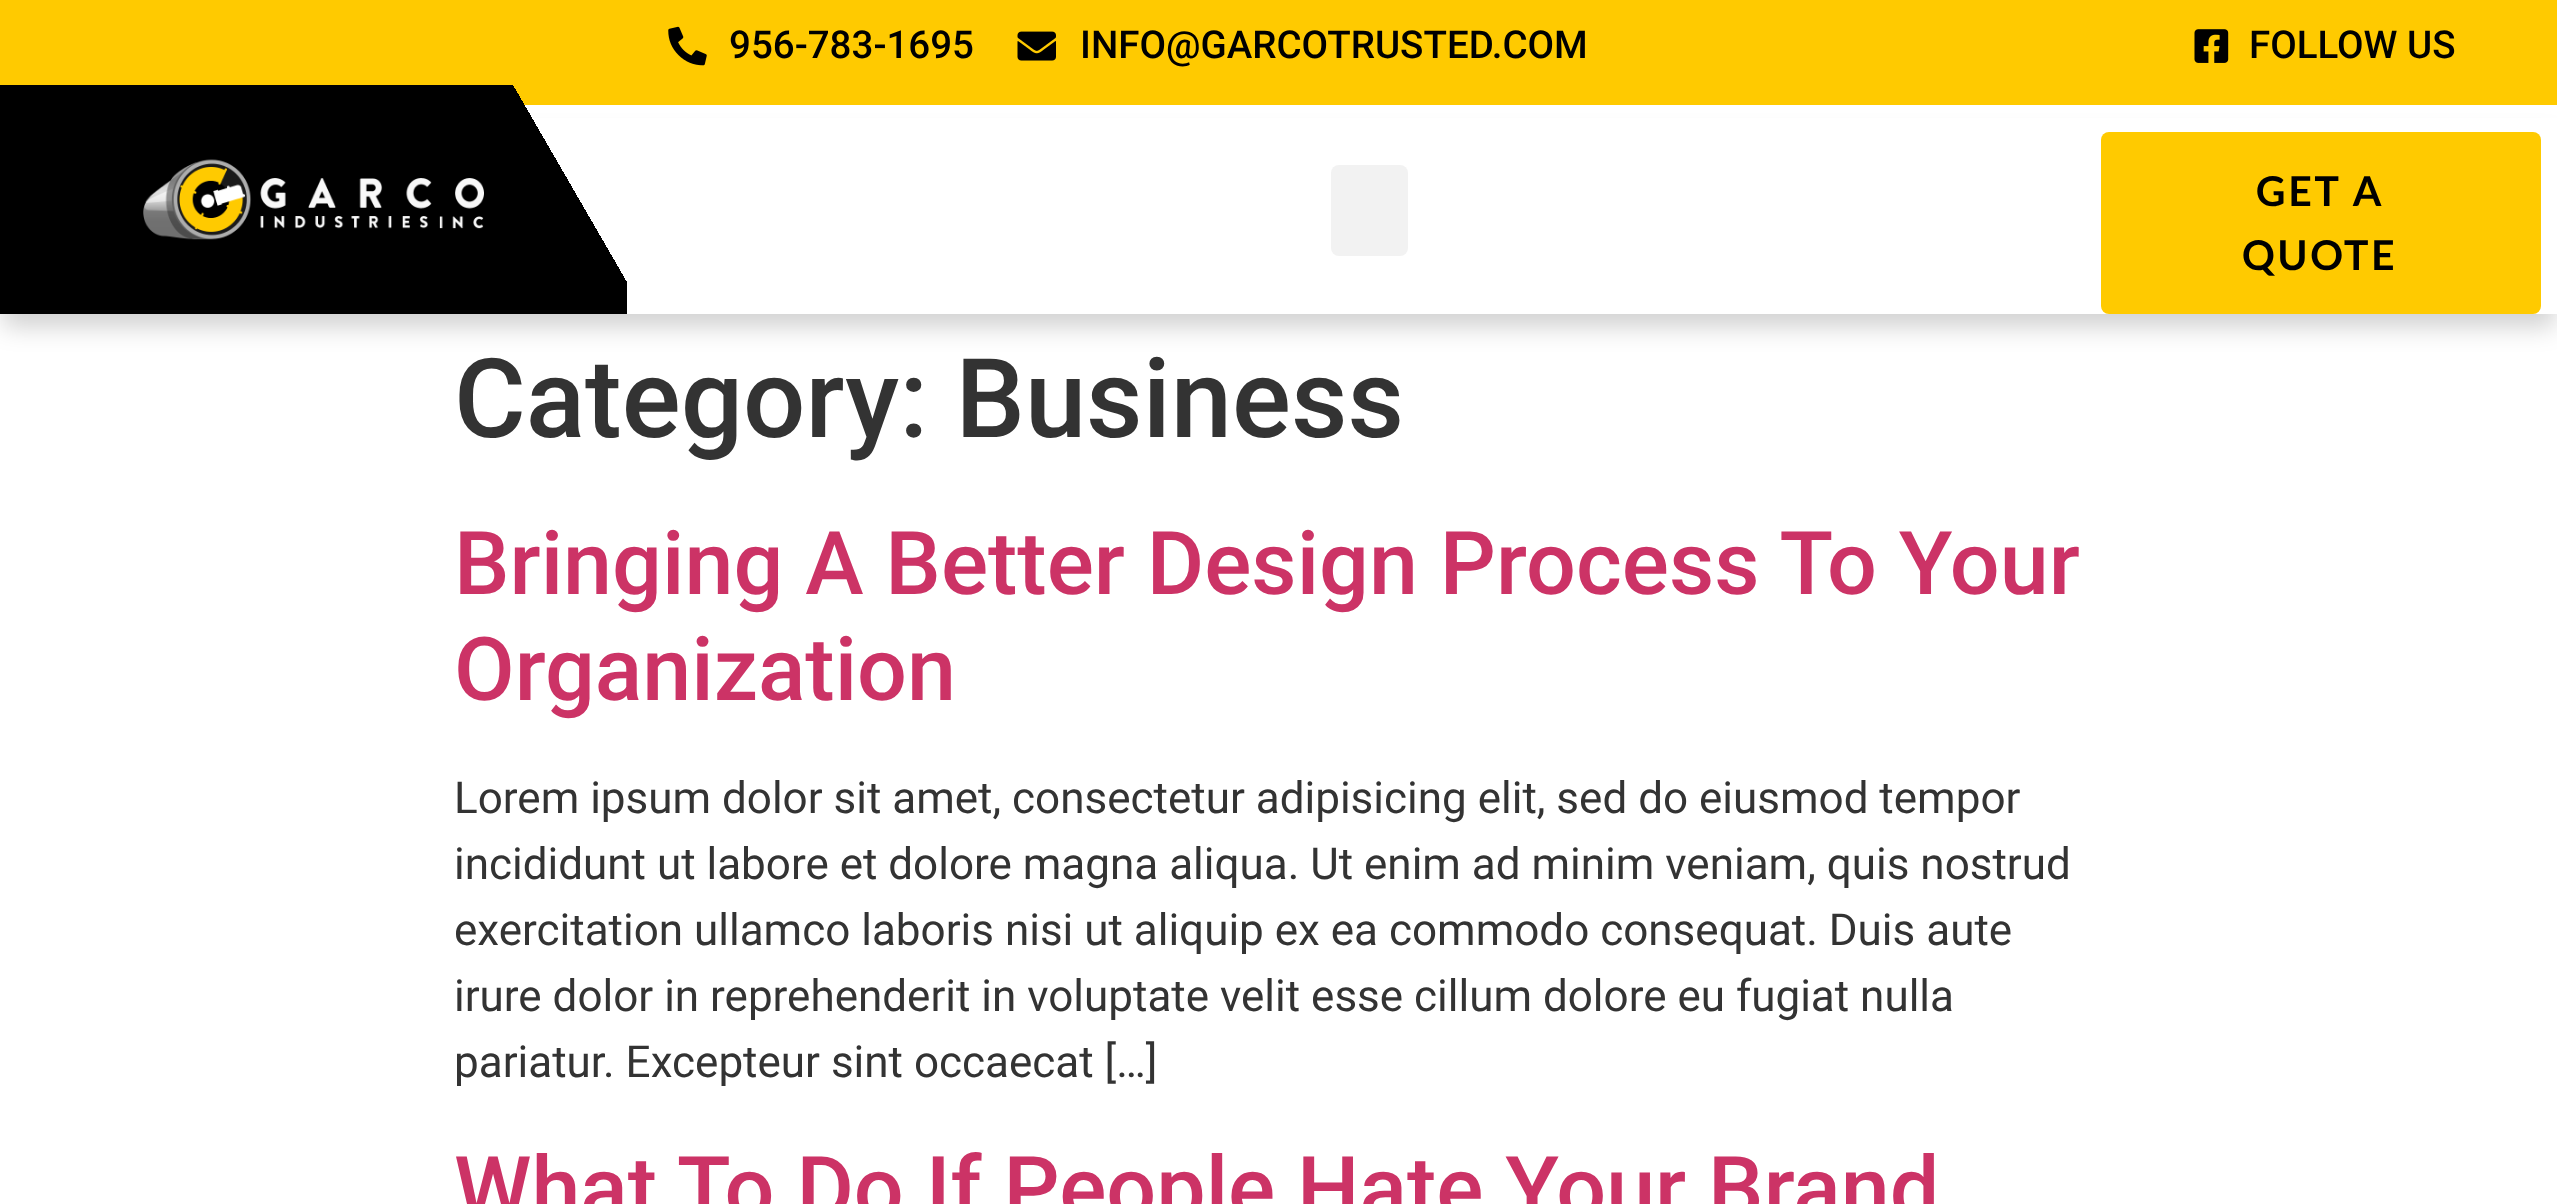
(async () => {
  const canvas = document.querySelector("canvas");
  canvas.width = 2557;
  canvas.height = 1204;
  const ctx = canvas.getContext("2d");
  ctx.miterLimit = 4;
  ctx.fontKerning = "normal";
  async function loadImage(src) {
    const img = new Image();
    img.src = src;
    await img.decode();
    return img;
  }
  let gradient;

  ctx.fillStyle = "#ffffff";
  ctx.fillRect(0, 0, 2557, 1204);
  ctx.fillStyle = "#ffca00";
  ctx.fillRect(0, 0, 2557, 105);
  ctx.drawImage(await loadImage("img/1.png"), 668, 26, 39, 40);
  ctx.drawImage(await loadImage("img/2.png"), 1017, 31, 39, 30);
  ctx.drawImage(await loadImage("img/3.png"), 2194, 29, 35, 34);
  ctx.fillStyle = "rgba(0, 0, 0, 0.18)";
  ctx.filter = "blur(12.5px)";
  ctx.beginPath();
  ctx.rect(3, 138, 2552, 189);
  ctx.fill();
  ctx.filter = "none";
  ctx.fillStyle = "#ffffff";
  ctx.fillRect(532, 118, 2025, 196);
  gradient = ctx.createLinearGradient(598, 35, 29, 364);
  gradient.addColorStop(0.15, "rgba(0, 0, 0, 0)");
  gradient.addColorStop(0.15, "#000000");
  ctx.fillStyle = gradient;
  ctx.fillRect(0, 85, 627, 229);
  ctx.drawImage(await loadImage("img/4.png"), 143, 159, 341, 81);
  ctx.fillStyle = "#f2f2f2";
  ctx.beginPath();
  ctx.roundRect(1331, 165, 77, 91, 8);
  ctx.fill();
  ctx.fillStyle = "#ffca00";
  ctx.beginPath();
  ctx.roundRect(2101, 132, 440, 182, 8);
  ctx.fill();
  ctx.font = "500 38.5px Roboto";
  ctx.fillStyle = "#000000";
  for (const [text, x, y] of [
    ["956-783-1695", 729, 58],
    ["INFO@GARCOTRUSTED.COM", 1080, 58],
    ["FOLLOW US", 2249, 58],
  ]) {
    ctx.fillText(text, x, y);
  }
  ctx.letterSpacing = "2.75px";
  ctx.font = "bold 41px Lato";
  ctx.fillText("GET A", 2256, 206);
  ctx.fillText("QUOTE", 2242, 270);
  ctx.letterSpacing = "0px";
  ctx.font = "500 110px Roboto";
  ctx.fillStyle = "#333333";
  ctx.fillText("Category: Business", 454, 437);
  ctx.font = "500 88px Roboto";
  ctx.fillStyle = "#cc3366";
  ctx.fillText("Bringing A Better Design Process To Your", 454, 594);
  ctx.fillText("Organization", 454, 700);
  ctx.font = "44px Roboto";
  ctx.fillStyle = "#333333";
  for (const [text, x, y] of [
    ["Lorem ipsum dolor sit amet, consectetur adipisicing elit, sed do eiusmod tempor", 454, 813],
    ["incididunt ut labore et dolore magna aliqua. Ut enim ad minim veniam, quis nostrud", 454, 879],
    ["exercitation ullamco laboris nisi ut aliquip ex ea commodo consequat. Duis aute", 454, 945],
    ["irure dolor in reprehenderit in voluptate velit esse cillum dolore eu fugiat nulla", 454, 1011],
    ["pariatur. Excepteur sint occaecat […]", 454, 1077],
  ]) {
    ctx.fillText(text, x, y);
  }
  ctx.font = "500 88px Roboto";
  ctx.fillStyle = "#cc3366";
  ctx.fillText("What To Do If People Hate Your Brand", 454, 1219);
})();
